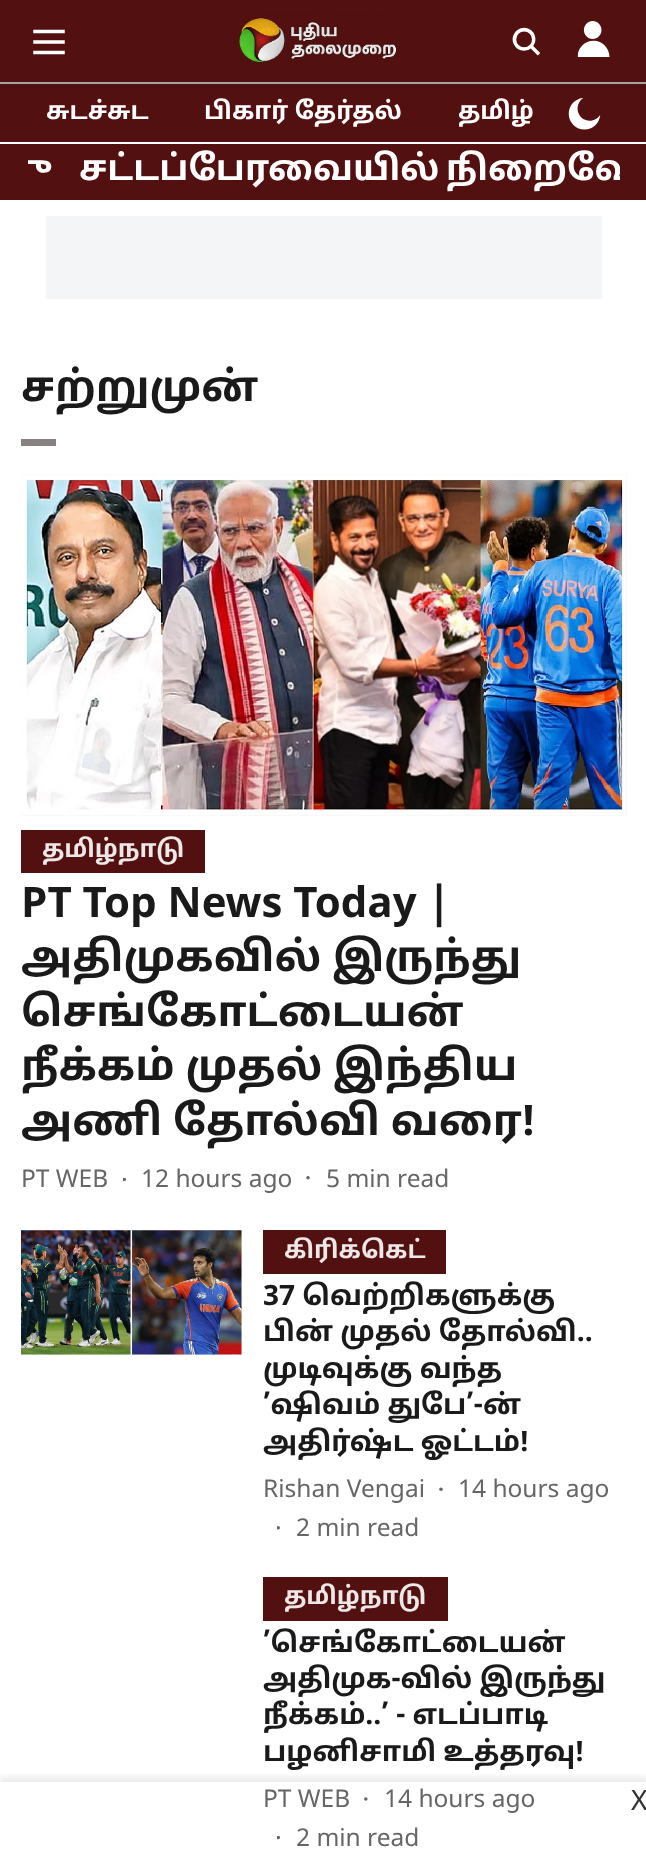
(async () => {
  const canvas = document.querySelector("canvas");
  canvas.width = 646;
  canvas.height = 1869;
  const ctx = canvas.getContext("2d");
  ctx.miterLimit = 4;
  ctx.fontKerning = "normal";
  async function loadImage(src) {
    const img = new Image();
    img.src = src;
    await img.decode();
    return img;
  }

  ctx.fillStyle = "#ffffff";
  ctx.fillRect(0, 0, 646, 1869);
  ctx.fillStyle = "#521010";
  ctx.fillRect(0, 0, 646, 82);
  ctx.fillStyle = "#a4a4a4";
  ctx.fillRect(0, 82, 646, 2);
  ctx.drawImage(await loadImage("img/1.png"), 33, 29, 32, 26);
  ctx.drawImage(await loadImage("img/2.png"), 235, 14, 178, 54);
  ctx.drawImage(await loadImage("img/3.png"), 512, 27, 28, 29);
  ctx.drawImage(await loadImage("img/4.png"), 577, 21, 33, 36);
  ctx.fillStyle = "#521010";
  ctx.fillRect(0, 84, 646, 58);
  ctx.drawImage(await loadImage("img/5.png"), 568, 98, 33, 32);
  for (const [x, y, w, h, color] of [
    [0, 144, 646, 56, "#521010"],
    [46, 216, 556, 83, "#f4f5f7"],
    [21, 439, 35, 7, "#888181"],
    [21, 474, 606, 342, "#f0f0f0"],
  ]) {
    ctx.fillStyle = color;
    ctx.fillRect(x, y, w, h);
  }
  ctx.drawImage(await loadImage("img/6.png"), 21, 474, 606, 342);
  ctx.fillStyle = "#521010";
  ctx.fillRect(21, 830, 184, 43);
  ctx.save();
  ctx.beginPath();
  ctx.rect(123, 1178, 5, 5);
  ctx.clip();
  ctx.fillStyle = "#666666";
  ctx.beginPath();
  ctx.arc(124.2, 1179.5, 1.8, 0, Math.PI * 2);
  ctx.fill();
  ctx.restore();
  ctx.fillStyle = "#666666";
  ctx.beginPath();
  ctx.arc(308, 1177.8, 1.8, 0, Math.PI * 2);
  ctx.fill();
  ctx.fillStyle = "#f0f0f0";
  ctx.fillRect(21, 1230, 221, 125);
  ctx.drawImage(await loadImage("img/7.png"), 21, 1230, 221, 125);
  ctx.fillStyle = "#521010";
  ctx.fillRect(263, 1230, 183, 44);
  ctx.fillStyle = "#666666";
  ctx.beginPath();
  ctx.arc(441, 1489.2, 1.8, 0, Math.PI * 2);
  ctx.fill();
  ctx.save();
  ctx.beginPath();
  ctx.rect(277, 1526, 5, 5);
  ctx.clip();
  ctx.beginPath();
  ctx.arc(278.2, 1527.8, 1.8, 0, Math.PI * 2);
  ctx.fill();
  ctx.restore();
  ctx.fillStyle = "#521010";
  ctx.fillRect(263, 1577, 185, 44);
  ctx.fillStyle = "#666666";
  ctx.beginPath();
  ctx.arc(365.8, 1799, 1.8, 0, Math.PI * 2);
  ctx.fill();
  ctx.save();
  ctx.beginPath();
  ctx.rect(277, 1836, 5, 5);
  ctx.clip();
  ctx.beginPath();
  ctx.arc(278.2, 1837.5, 1.8, 0, Math.PI * 2);
  ctx.fill();
  ctx.restore();
  ctx.save();
  ctx.beginPath();
  ctx.rect(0, 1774, 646, 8);
  ctx.clip();
  ctx.fillStyle = "rgba(0, 0, 0, 0.1)";
  ctx.filter = "blur(4.5px)";
  ctx.beginPath();
  ctx.rect(0, 1778, 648, 88);
  ctx.fill();
  ctx.filter = "none";
  ctx.restore();
  ctx.font = "bold 24.5px Noto Sans Tamil";
  ctx.fillStyle = "#ffffff";
  for (const [text, x, y] of [
    ["சுடச்சுட", 46, 119],
    ["பிகார் தேர்தல்", 204, 119],
    ["தமிழ்", 458, 119],
  ]) {
    ctx.fillText(text, x, y);
  }
  ctx.save();
  ctx.beginPath();
  ctx.rect(28, 145, 592, 53);
  ctx.clip();
  ctx.font = "bold 35px Noto Sans Tamil";
  ctx.fillText("ு", 33, 180);
  ctx.fillText("சட்டப்பேரவையில்", 79, 180);
  ctx.fillText("நிறைவே", 446, 180);
  ctx.restore();
  ctx.font = "bold 42px Noto Sans Tamil";
  ctx.fillStyle = "#1a1a1a";
  ctx.fillText("சற்றுமுன்", 21, 401);
  ctx.font = "bold 24.5px Noto Sans Tamil";
  ctx.fillStyle = "#eee7e7";
  ctx.fillText("தமிழ்நாடு", 42, 857);
  ctx.font = "bold 42px Noto Sans Tamil";
  ctx.fillStyle = "#1a1a1a";
  for (const [text, x, y] of [
    ["PT Top News Today |", 21, 917],
    ["அதிமுகவில் இருந்து", 21, 971],
    ["செங்கோட்டையன்", 21, 1026],
    ["நீக்கம் முதல் இந்திய", 21, 1080],
    ["அணி தோல்வி வரை!", 21, 1135],
  ]) {
    ctx.fillText(text, x, y);
  }
  ctx.font = "24.5px Noto Sans Tamil";
  ctx.fillStyle = "#666666";
  for (const [text, x, y] of [
    ["PT WEB", 21, 1187],
    ["12 hours ago", 141, 1187],
    ["5 min read", 326, 1187],
  ]) {
    ctx.fillText(text, x, y);
  }
  ctx.font = "bold 24.5px Noto Sans Tamil";
  ctx.fillStyle = "#eee7e7";
  ctx.fillText("கிரிக்கெட்", 284, 1258);
  ctx.font = "bold 28px Noto Sans Tamil";
  ctx.fillStyle = "#1a1a1a";
  for (const [text, x, y] of [
    ["37 வெற்றிகளுக்கு", 263, 1305],
    ["பின் முதல் தோல்வி..", 263, 1341],
    ["முடிவுக்கு வந்த", 263, 1378],
    ["’ஷிவம் துபே’-ன்", 263, 1414],
    ["அதிர்ஷ்ட ஓட்டம்!", 263, 1451],
  ]) {
    ctx.fillText(text, x, y);
  }
  ctx.font = "24.5px Noto Sans Tamil";
  ctx.fillStyle = "#666666";
  for (const [text, x, y] of [
    ["Rishan Vengai", 263, 1497],
    ["14 hours ago", 458, 1497],
    ["2 min read", 296, 1536],
  ]) {
    ctx.fillText(text, x, y);
  }
  ctx.font = "bold 24.5px Noto Sans Tamil";
  ctx.fillStyle = "#eee7e7";
  ctx.fillText("தமிழ்நாடு", 284, 1604);
  ctx.font = "bold 28px Noto Sans Tamil";
  ctx.fillStyle = "#1a1a1a";
  for (const [text, x, y] of [
    ["’செங்கோட்டையன்", 263, 1652],
    ["அதிமுக-வில் இருந்து", 263, 1688],
    ["நீக்கம்..’ - எடப்பாடி", 263, 1724],
    ["பழனிசாமி உத்தரவு!", 263, 1761],
  ]) {
    ctx.fillText(text, x, y);
  }
  ctx.font = "24.5px Noto Sans Tamil";
  ctx.fillStyle = "#666666";
  for (const [text, x, y] of [
    ["PT WEB", 263, 1807],
    ["14 hours ago", 384, 1807],
    ["2 min read", 296, 1846],
  ]) {
    ctx.fillText(text, x, y);
  }
  ctx.font = "28px Noto Sans Tamil";
  ctx.fillStyle = "#333333";
  ctx.fillText("X", 631, 1810);
})();
